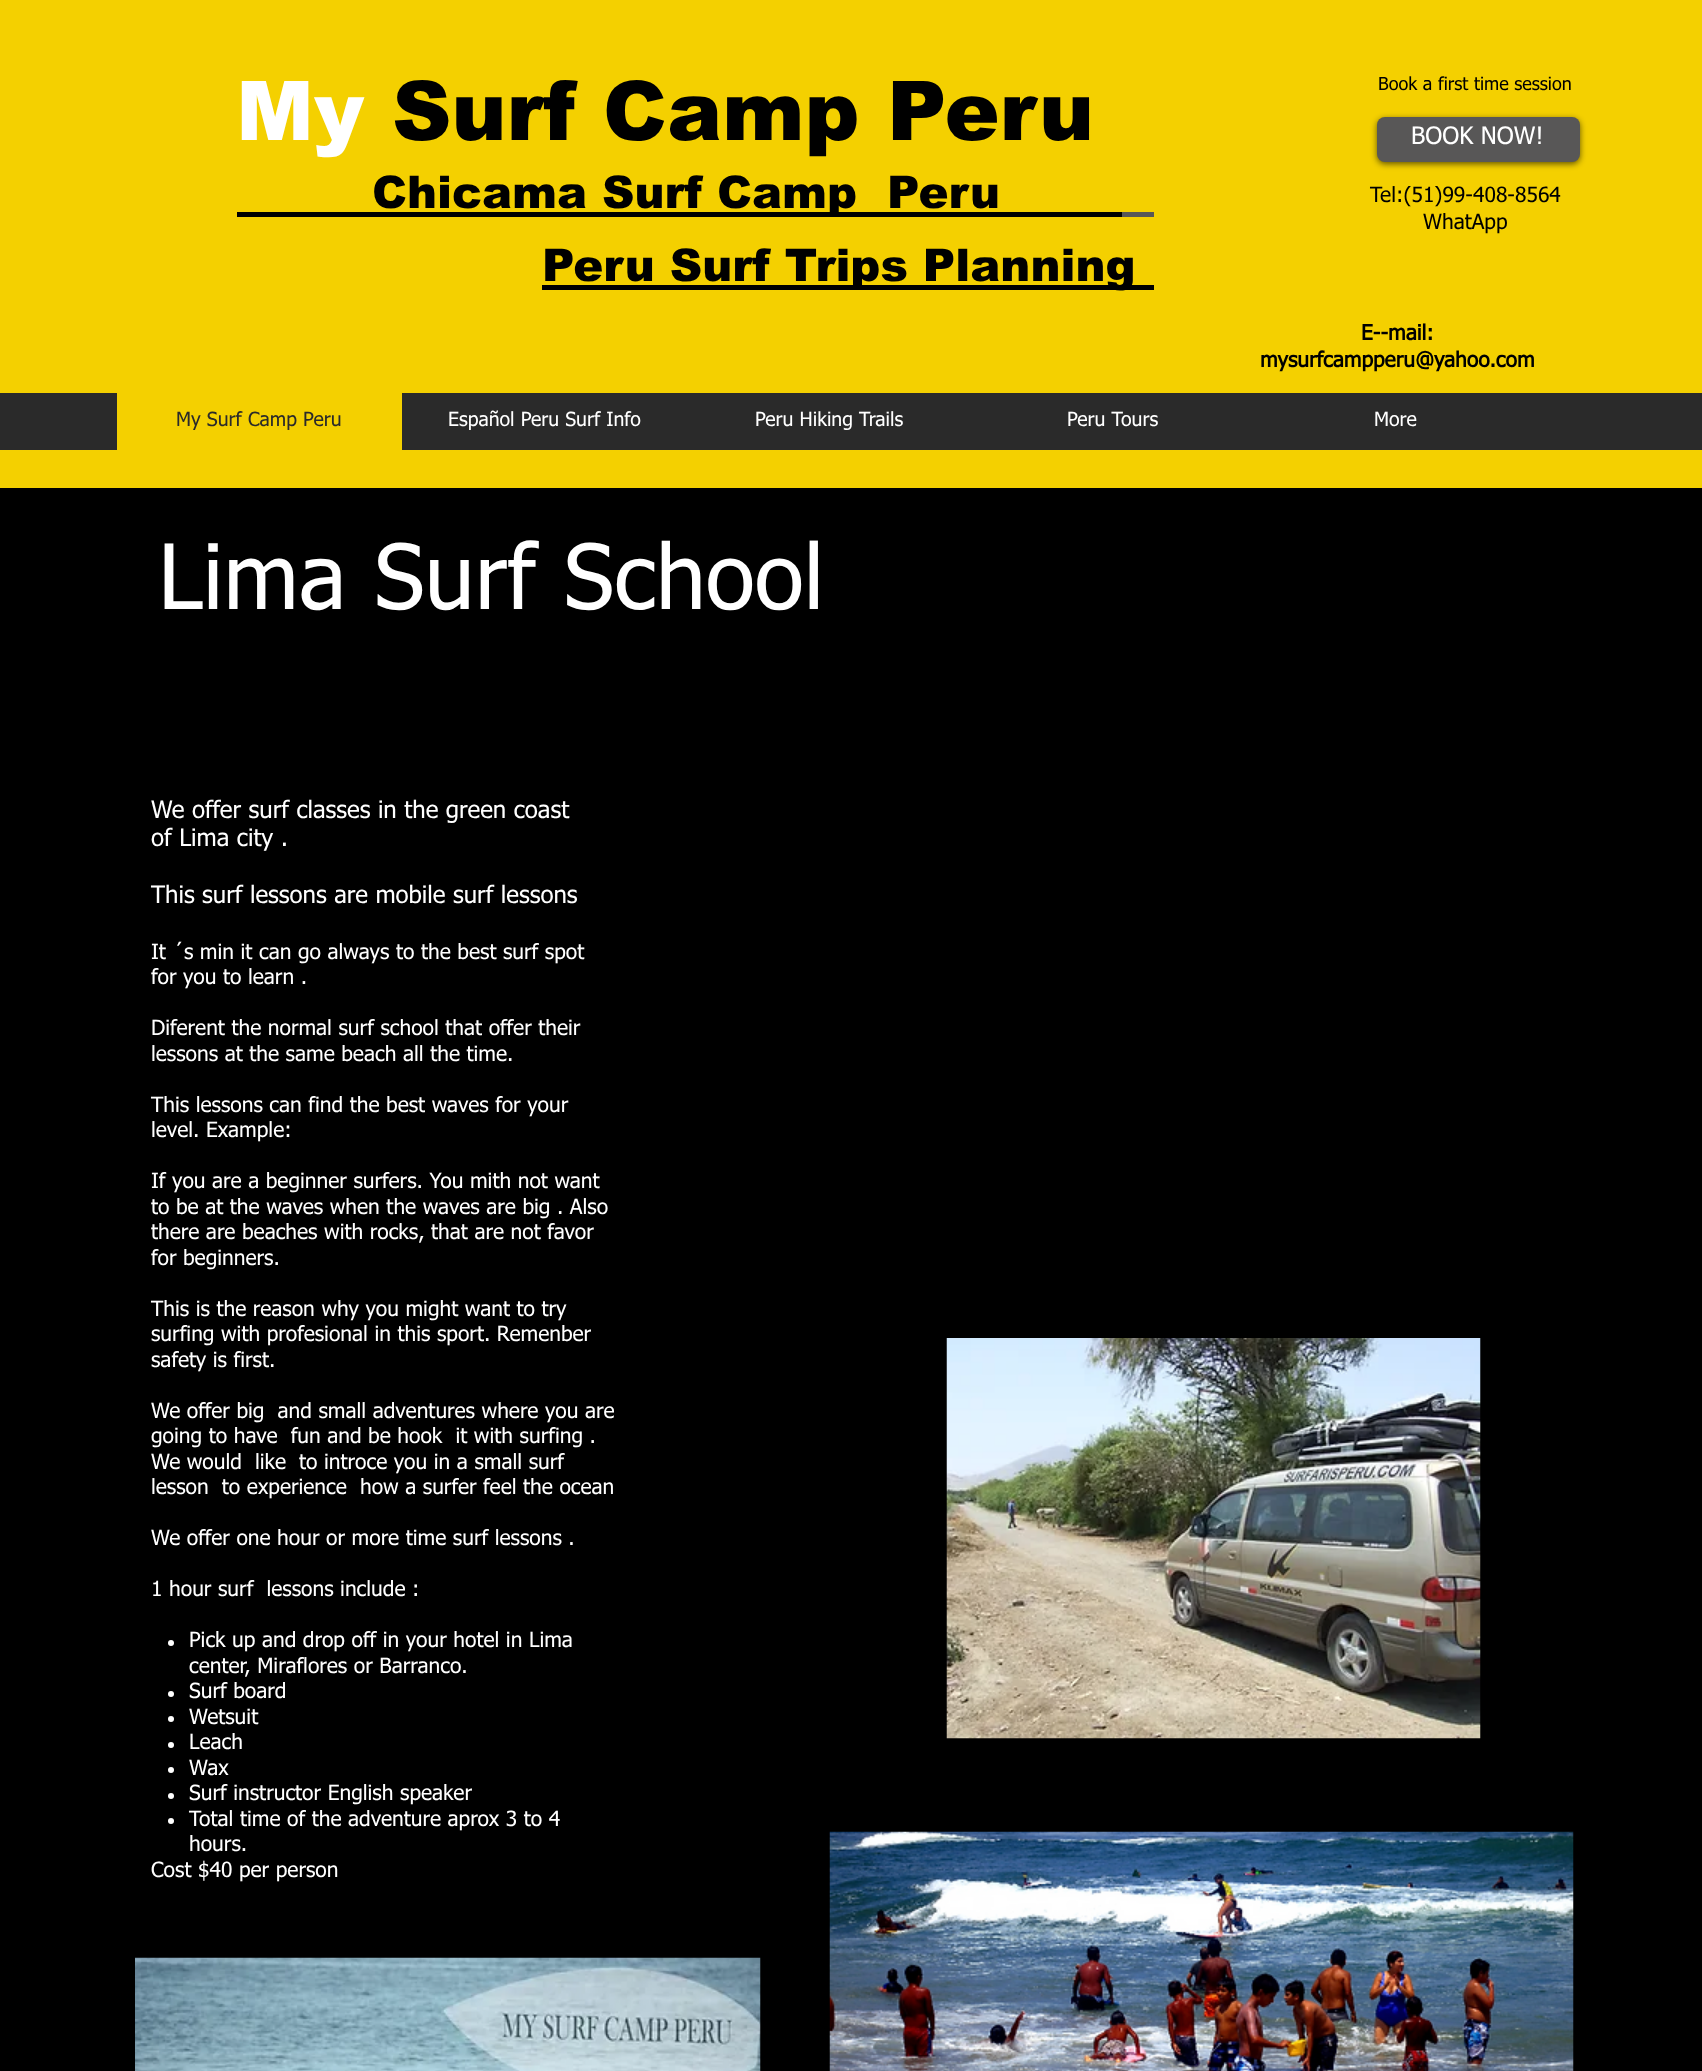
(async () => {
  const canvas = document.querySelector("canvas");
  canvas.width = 1702;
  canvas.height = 2071;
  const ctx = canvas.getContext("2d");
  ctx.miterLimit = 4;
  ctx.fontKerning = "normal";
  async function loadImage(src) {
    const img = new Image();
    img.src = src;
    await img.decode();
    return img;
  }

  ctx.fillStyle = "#000000";
  ctx.fillRect(0, 0, 1702, 2071);
  ctx.fillStyle = "#f4d000";
  ctx.fillRect(0, 0, 1702, 488);
  ctx.fillStyle = "rgba(0, 0, 0, 0.6)";
  ctx.filter = "blur(3px)";
  ctx.beginPath();
  ctx.roundRect(1377, 119, 203, 45, 8);
  ctx.fill();
  ctx.filter = "none";
  ctx.fillStyle = "#585757";
  ctx.beginPath();
  ctx.roundRect(1377, 117, 203, 45, 8);
  ctx.fill();
  for (const [x, y, w, h, color] of [
    [237, 212, 885, 5, "#000000"],
    [1122, 212, 32, 5, "#585757"],
    [542, 285, 612, 5, "#000000"],
    [0, 393, 1702, 57, "#2a2a2a"],
    [117, 393, 285, 57, "#f4d000"],
  ]) {
    ctx.fillStyle = color;
    ctx.fillRect(x, y, w, h);
  }
  ctx.fillStyle = "#ffffff";
  ctx.beginPath();
  ctx.arc(171, 1643, 3, 0, Math.PI * 2);
  ctx.fill();
  ctx.beginPath();
  ctx.arc(171, 1694, 3, 0, Math.PI * 2);
  ctx.fill();
  ctx.beginPath();
  ctx.arc(171, 1719, 3, 0, Math.PI * 2);
  ctx.fill();
  ctx.beginPath();
  ctx.arc(171, 1745, 3, 0, Math.PI * 2);
  ctx.fill();
  ctx.beginPath();
  ctx.arc(171, 1770, 3, 0, Math.PI * 2);
  ctx.fill();
  ctx.beginPath();
  ctx.arc(171, 1796, 3, 0, Math.PI * 2);
  ctx.fill();
  ctx.beginPath();
  ctx.arc(171, 1821, 3, 0, Math.PI * 2);
  ctx.fill();
  ctx.drawImage(await loadImage("img/1.png"), 946, 1338, 535, 401);
  ctx.drawImage(await loadImage("img/2.png"), 135, 1957, 626, 114);
  ctx.drawImage(await loadImage("img/3.png"), 829, 1831, 745, 240);
  ctx.font = "900 82.5px arial";
  ctx.fillText("My", 236, 140);
  ctx.fillStyle = "#000000";
  ctx.fillText("Surf Camp Peru", 392, 140);
  ctx.font = "18px tahoma";
  ctx.fillText("Book a first time session", 1378, 90);
  ctx.font = "24px tahoma";
  ctx.fillStyle = "#ffffff";
  ctx.fillText("BOOK NOW!", 1411, 144);
  ctx.font = "900 45px arial";
  ctx.fillStyle = "#000000";
  ctx.fillText("Chicama Surf Camp  Peru", 372, 208);
  ctx.font = "21px tahoma";
  ctx.fillText("Tel:(51)99-408-8564", 1370, 202);
  ctx.fillText("WhatApp", 1423, 229);
  ctx.font = "900 45px arial";
  ctx.fillText("Peru Surf Trips Planning", 542, 281);
  ctx.font = "bold 21px tahoma";
  ctx.fillText("E--mail:", 1361, 340);
  ctx.fillText("mysurfcampperu@yahoo.com", 1260, 367);
  ctx.font = "19.5px tahoma";
  ctx.fillStyle = "#2a2a2a";
  ctx.fillText("My Surf Camp Peru", 176, 426);
  ctx.fillStyle = "#ffffff";
  for (const [text, x, y] of [
    ["Español Peru Surf Info", 448, 426],
    ["Peru Hiking Trails", 755, 426],
    ["Peru Tours", 1067, 426],
    ["More", 1374, 426],
  ]) {
    ctx.fillText(text, x, y);
  }
  ctx.font = "90px tahoma";
  ctx.fillText("Lima Surf School", 158, 609);
  ctx.font = "24px tahoma";
  for (const [text, x, y] of [
    ["We offer surf classes in the green coast", 151, 818],
    ["of Lima city .", 151, 846],
    ["This surf lessons are mobile surf lessons", 151, 903],
  ]) {
    ctx.fillText(text, x, y);
  }
  ctx.font = "21px tahoma";
  for (const [text, x, y] of [
    ["It ´s min it can go always to the best surf spot", 151, 959],
    ["for you to learn .", 151, 984],
    ["Diferent the normal surf school that offer their", 151, 1035],
    ["lessons at the same beach all the time.", 151, 1061],
    ["This lessons can find the best waves for your", 151, 1112],
    ["level. Example:", 151, 1137],
    ["If you are a beginner surfers. You mith not want", 151, 1188],
    ["to be at the waves when the waves are big . Also", 151, 1214],
    ["there are beaches with rocks, that are not favor", 151, 1239],
    ["for beginners.", 151, 1265],
    ["This is the reason why you might want to try", 151, 1316],
    ["surfing with profesional in this sport. Remenber", 151, 1341],
    ["safety is first.", 151, 1367],
    ["We offer big  and small adventures where you are", 151, 1418],
    ["going to have  fun and be hook  it with surfing .", 151, 1443],
    ["We would  like  to introce you in a small surf", 151, 1469],
    ["lesson  to experience  how a surfer feel the ocean", 151, 1494],
    ["We offer one hour or more time surf lessons .", 151, 1545],
    ["1 hour surf  lessons include :", 151, 1596],
    ["Pick up and drop off in your hotel in Lima", 189, 1647],
    ["center, Miraflores or Barranco.", 189, 1673],
    ["Surf board", 189, 1698],
    ["Wetsuit", 189, 1724],
    ["Leach", 189, 1749],
    ["Wax", 189, 1775],
    ["Surf instructor English speaker", 189, 1800],
    ["Total time of the adventure aprox 3 to 4", 189, 1826],
    ["hours.", 189, 1851],
    ["Cost $40 per person", 151, 1877],
  ]) {
    ctx.fillText(text, x, y);
  }
})();
